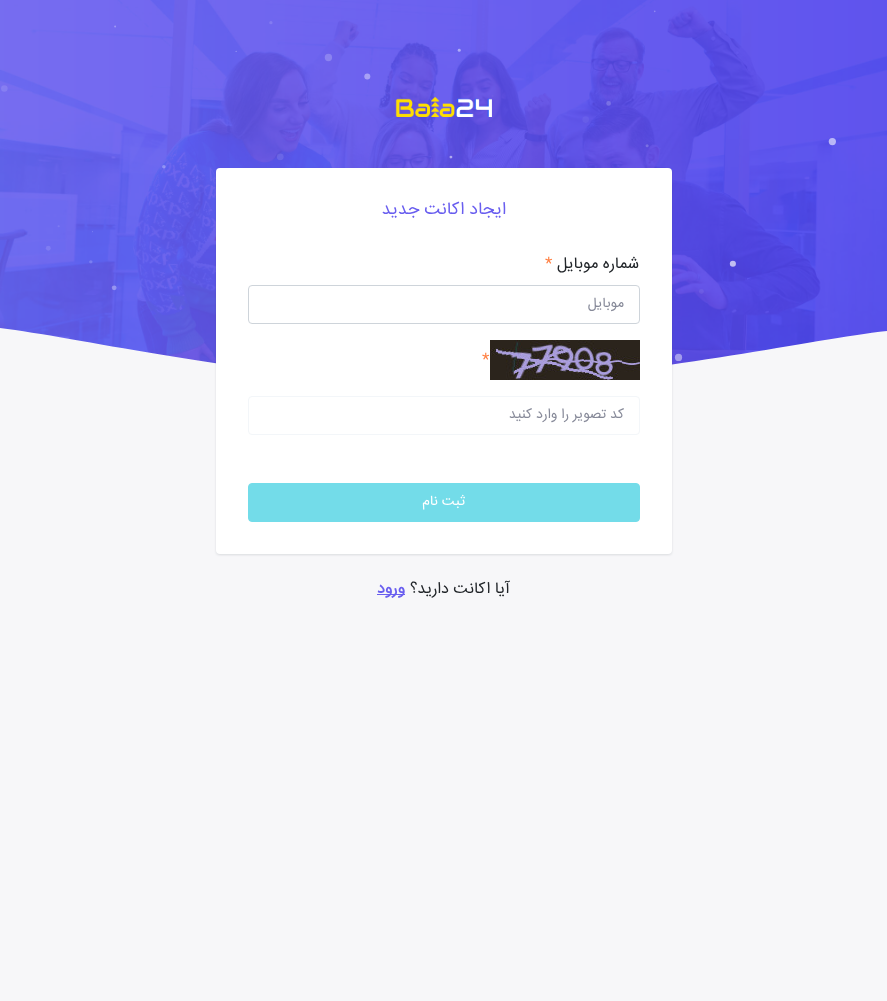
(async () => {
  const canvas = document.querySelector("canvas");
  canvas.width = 887;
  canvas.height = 1001;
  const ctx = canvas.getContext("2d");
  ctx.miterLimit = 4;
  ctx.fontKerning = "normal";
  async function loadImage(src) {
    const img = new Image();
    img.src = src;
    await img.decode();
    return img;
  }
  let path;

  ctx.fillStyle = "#f7f7f9";
  ctx.fillRect(0, 0, 887, 1001);
  ctx.drawImage(await loadImage("img/1.png"), 0, 0, 887, 365);
  ctx.drawImage(await loadImage("img/2.png"), 1, 10, 835, 351);
  ctx.save();
  ctx.beginPath();
  ctx.rect(0, 306, 887, 74);
  ctx.clip();
  path = new Path2D("M0 328C89 339 266 382 444 382C621 383 798 341 887 331V392H0Z");
  ctx.fill(path);
  ctx.restore();
  ctx.drawImage(await loadImage("img/3.png"), 395, 97, 97, 20);
  ctx.fillStyle = "rgba(56, 65, 74, 0.15)";
  ctx.filter = "blur(1px)";
  ctx.beginPath();
  ctx.roundRect(216, 169, 456, 386, 4);
  ctx.fill();
  ctx.filter = "none";
  ctx.fillStyle = "#ffffff";
  ctx.beginPath();
  ctx.roundRect(216, 168, 456, 386, 4);
  ctx.fill();
  ctx.beginPath();
  ctx.roundRect(248.5, 285.5, 391, 38, 3.5);
  ctx.strokeStyle = "#ced4da";
  ctx.stroke();
  ctx.drawImage(await loadImage("img/4.png"), 490, 340, 150, 40);
  ctx.beginPath();
  ctx.roundRect(248.5, 396.5, 391, 38, 3.5);
  ctx.strokeStyle = "#f3f6f9";
  ctx.stroke();
  ctx.fillStyle = "#73dce9";
  ctx.beginPath();
  ctx.roundRect(248.5, 483.5, 391, 38, 3.5);
  ctx.fill();
  ctx.strokeStyle = "#73dce9";
  ctx.stroke();
  ctx.fillStyle = "#695eef";
  ctx.fillRect(377, 594, 28, 1);
  ctx.direction = "rtl";
  ctx.font = "17.5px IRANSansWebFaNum";
  ctx.fillText("ایجاد اکانت جدید", 506, 214);
  ctx.font = "16px IRANSansWebFaNum";
  ctx.fillStyle = "#212529";
  ctx.fillText("شماره موبایل", 639, 268);
  ctx.direction = "ltr";
  ctx.fillStyle = "#ff7f41";
  ctx.fillText("*", 545, 268);
  ctx.direction = "rtl";
  ctx.font = "14px IRANSansWebFaNum";
  ctx.fillStyle = "#878a99";
  ctx.fillText("موبایل", 624, 307);
  ctx.direction = "ltr";
  ctx.font = "16px IRANSansWebFaNum";
  ctx.fillStyle = "#ff7f41";
  ctx.fillText("*", 482, 364);
  ctx.direction = "rtl";
  ctx.font = "14px IRANSansWebFaNum";
  ctx.fillStyle = "#878a99";
  ctx.fillText("کد تصویر را وارد کنید", 624, 418);
  ctx.fillStyle = "#ffffff";
  ctx.fillText("ثبت نام", 465, 505);
  ctx.font = "16px IRANSansWebFaNum";
  ctx.fillStyle = "#212529";
  ctx.fillText("آیا اکانت دارید؟", 510, 593);
  ctx.font = "bold 16px IRANSansWebFaNum";
  ctx.fillStyle = "#695eef";
  ctx.fillText("ورود", 405, 593);
})();
